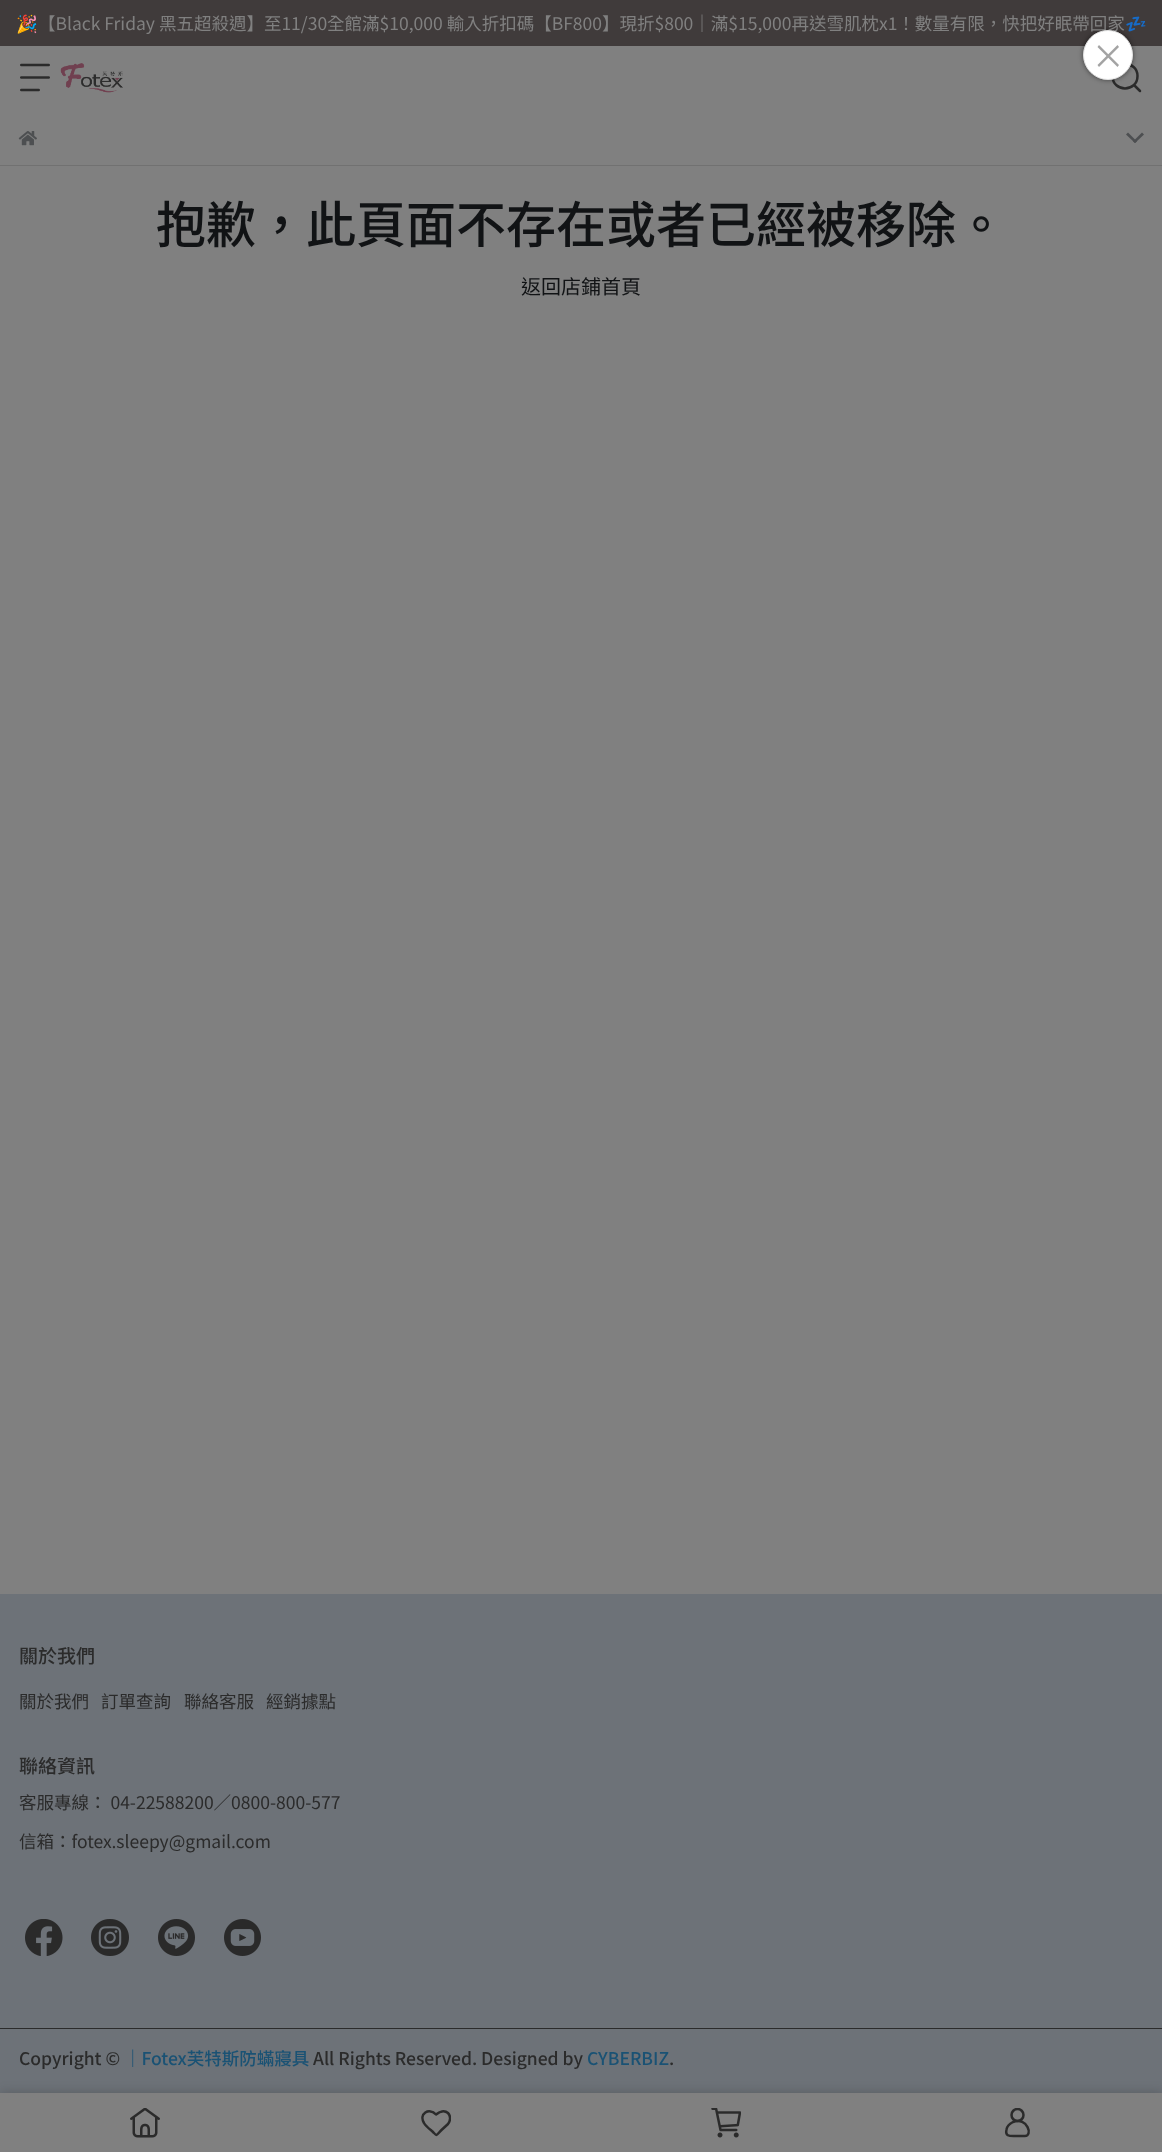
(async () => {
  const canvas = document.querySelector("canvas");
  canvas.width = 1162;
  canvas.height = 2152;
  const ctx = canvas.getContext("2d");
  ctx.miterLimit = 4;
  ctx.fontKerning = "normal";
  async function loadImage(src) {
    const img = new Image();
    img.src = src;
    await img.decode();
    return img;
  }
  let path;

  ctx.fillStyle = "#808080";
  ctx.fillRect(0, 0, 1162, 2152);
  ctx.fillStyle = "#403b3b";
  ctx.fillRect(0, 0, 1162, 46);
  ctx.drawImage(await loadImage("img/1.png"), 20, 63, 30, 29);
  ctx.drawImage(await loadImage("img/2.png"), 60, 63, 63, 30);
  path = new Path2D("M1137.5 76C1137.5 92.5 1112.5 92.5 1112.5 76C1112.5 60 1137.5 60 1137.5 76ZM1135 86L1140 91");
  ctx.strokeStyle = "#2b2b2b";
  ctx.lineWidth = 2.5;
  ctx.lineCap = "round";
  ctx.lineJoin = "round";
  ctx.stroke(path);
  ctx.fillStyle = "#6d7278";
  ctx.fillRect(0, 1594, 1162, 499);
  ctx.fillStyle = "rgba(0, 0, 0, 0.2)";
  ctx.filter = "blur(6px)";
  ctx.beginPath();
  ctx.rect(0, 2093, 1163, 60);
  ctx.fill();
  ctx.filter = "none";
  ctx.fillStyle = "#808080";
  ctx.fillRect(0, 2093, 1162, 59);
  ctx.drawImage(await loadImage("img/3.png"), 130, 2108, 30, 30);
  ctx.save();
  ctx.beginPath();
  ctx.rect(421, 2108, 30, 30);
  ctx.clip();
  path = new Path2D("M448 2113C444.5 2110 439.5 2111.5 436 2114.5C429 2107 418.5 2114 424 2123C426 2126.5 429.5 2129 432.5 2131.5C437.5 2136.5 435.5 2136 441.5 2130L448 2124C450.5 2121 451 2116 448 2113Z");
  ctx.stroke(path);
  ctx.restore();
  ctx.drawImage(await loadImage("img/4.png"), 711, 2108, 30, 30);
  ctx.save();
  ctx.beginPath();
  ctx.rect(1003, 2108, 30, 30);
  ctx.clip();
  ctx.beginPath();
  ctx.arc(1017.5, 2115, 6, 0, Math.PI * 2);
  ctx.stroke();
  ctx.restore();
  path = new Path2D("M1024.5 2136H1015C1009.5 2136 1005 2136.5 1006.5 2129.5C1007 2126 1010 2123.5 1013 2122C1027.5 2116.5 1033.5 2136.5 1024.5 2136Z");
  ctx.lineCap = "butt";
  ctx.lineJoin = "miter";
  ctx.stroke(path);
  ctx.fillStyle = "rgba(0, 0, 0, 0.5)";
  ctx.filter = "blur(2.5px)";
  ctx.beginPath();
  ctx.roundRect(1083, 30, 50, 50, 25);
  ctx.fill();
  ctx.filter = "none";
  ctx.fillStyle = "#717171";
  ctx.fillRect(0, 165, 1162, 1);
  ctx.drawImage(await loadImage("img/5.png"), 18, 131, 19, 15);
  ctx.fillStyle = "#4d4f51";
  path = new Path2D("M1133 141.5L1142 132.5L1144 134.5L1135 143Z");
  ctx.fill(path);
  path = new Path2D("M1126 134.5L1128 132.5L1137 141.5L1135 143Z");
  ctx.fill(path);
  ctx.drawImage(await loadImage("img/6.png"), 25, 1919, 38, 37);
  ctx.drawImage(await loadImage("img/7.png"), 91, 1919, 38, 37);
  ctx.drawImage(await loadImage("img/8.png"), 158, 1919, 37, 37);
  ctx.drawImage(await loadImage("img/9.png"), 224, 1919, 37, 37);
  ctx.fillStyle = "#2b2b2b";
  ctx.fillRect(0, 2028, 1162, 1);
  ctx.font = "17.5px Noto Color Emoji";
  ctx.fillStyle = "#808080";
  ctx.fillText("🎉", 16, 30);
  ctx.font = "17.5px Noto Sans TC";
  ctx.fillText("【Black Friday 黑五超殺週】至11/30全館滿$10,000 輸入折扣碼【BF800】現折$800｜滿$15,000再送雪肌枕x1！數量有限，快把好眠帶回家", 38, 30);
  ctx.font = "17.5px Noto Color Emoji";
  ctx.fillText("💤", 1125, 30);
  ctx.fillStyle = "#ffffff";
  ctx.beginPath();
  ctx.arc(1108, 55, 24.5, 0, Math.PI * 2);
  ctx.fill();
  ctx.strokeStyle = "#e2e2e2";
  ctx.lineWidth = 1;
  ctx.stroke();
  ctx.fillStyle = "#a3a3a3";
  path = new Path2D("M1099 45L1119 65L1117.5 67L1097.5 47Z");
  ctx.fill(path);
  path = new Path2D("M1097.5 65L1117.5 45L1119 47L1099 67Z");
  ctx.fill(path);
  ctx.font = "500 50px Noto Sans TC";
  ctx.fillStyle = "#111315";
  ctx.fillText("抱歉，此頁面不存在或者已經被移除。", 156, 243);
  ctx.font = "20px Noto Sans TC";
  ctx.fillText("返回店鋪首頁", 521, 294);
  ctx.font = "500 19px Noto Sans TC";
  ctx.fillStyle = "#2b2b2b";
  ctx.fillText("關於我們", 19, 1663);
  ctx.font = "17.5px Noto Sans TC";
  for (const [text, x, y] of [
    ["關於我們", 19, 1708],
    ["訂單查詢", 101, 1708],
    ["聯絡客服", 184, 1708],
    ["經銷據點", 266, 1708],
  ]) {
    ctx.fillText(text, x, y);
  }
  ctx.font = "500 19px Noto Sans TC";
  ctx.fillText("聯絡資訊", 19, 1773);
  ctx.font = "17.5px Noto Sans TC";
  ctx.fillText("客服專線： 04-22588200／0800-800-577", 19, 1809);
  ctx.fillText("信箱：fotex.sleepy@gmail.com", 19, 1848);
  ctx.font = "500 17.5px Noto Sans TC";
  ctx.fillText("Copyright ©", 19, 2065);
  ctx.fillStyle = "#1a5274";
  ctx.fillText("｜Fotex芙特斯防蟎寢具", 124, 2065);
  ctx.fillStyle = "#2b2b2b";
  ctx.fillText("All Rights Reserved. Designed by", 313, 2065);
  ctx.fillStyle = "#1a5274";
  ctx.fillText("CYBERBIZ", 587, 2065);
  ctx.fillStyle = "#2b2b2b";
  ctx.fillText(".", 669, 2065);
})();
